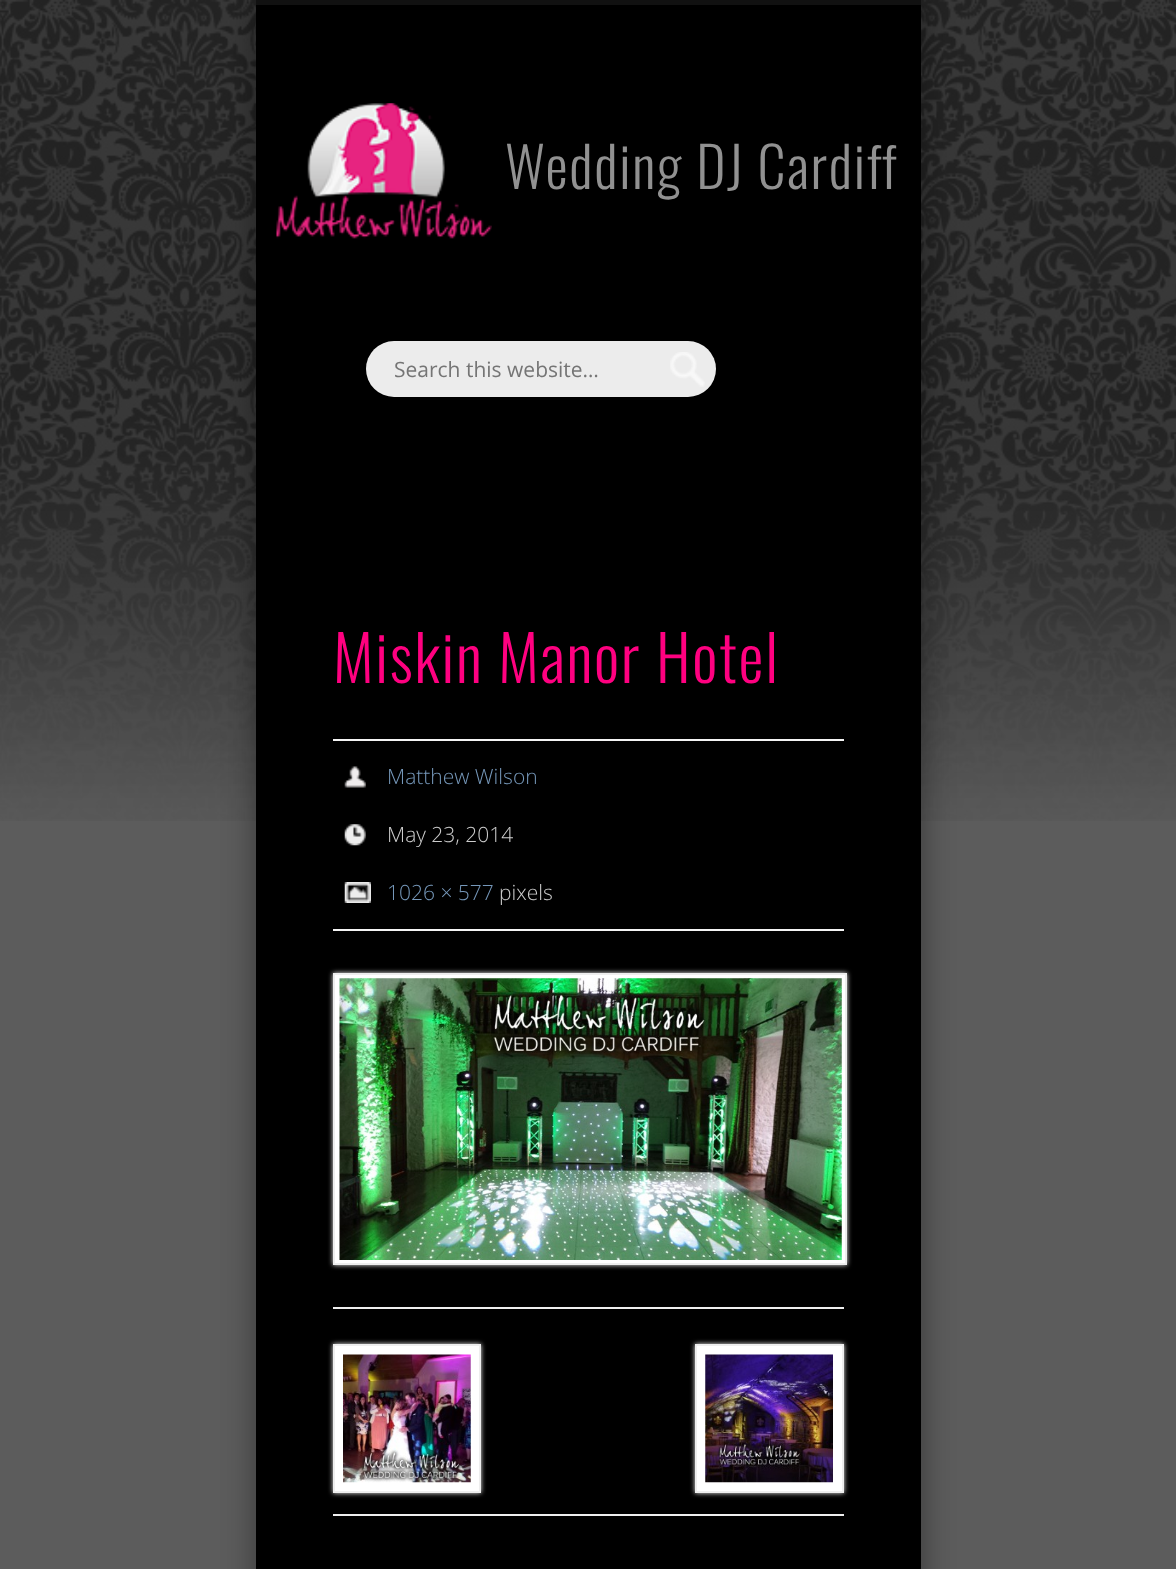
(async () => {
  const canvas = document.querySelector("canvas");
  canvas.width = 1176;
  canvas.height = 1569;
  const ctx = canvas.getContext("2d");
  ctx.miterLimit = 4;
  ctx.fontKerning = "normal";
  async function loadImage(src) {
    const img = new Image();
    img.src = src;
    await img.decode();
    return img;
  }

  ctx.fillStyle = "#5c5c5c";
  ctx.fillRect(0, 0, 1176, 1569);
  ctx.drawImage(await loadImage("img/1.png"), 0, 0, 1176, 821);
  ctx.fillStyle = "rgba(0, 0, 0, 0.4)";
  ctx.filter = "blur(16px)";
  ctx.beginPath();
  ctx.rect(256, 0, 665, 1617);
  ctx.fill();
  ctx.filter = "none";
  ctx.fillStyle = "#000000";
  ctx.fillRect(256, 5, 665, 1564);
  ctx.fillStyle = "#111111";
  ctx.fillRect(256, 0, 665, 5);
  ctx.drawImage(await loadImage("img/2.png"), 276, 103, 216, 136);
  ctx.fillStyle = "#ececec";
  ctx.beginPath();
  ctx.roundRect(366, 341, 350, 56, 28);
  ctx.fill();
  ctx.drawImage(await loadImage("img/3.png"), 670, 352, 35, 35);
  ctx.fillStyle = "#f4f4f4";
  ctx.fillRect(333, 739, 511, 2);
  ctx.fillRect(333, 929, 511, 2);
  ctx.drawImage(await loadImage("img/4.png"), 344, 766, 22, 22);
  ctx.drawImage(await loadImage("img/5.png"), 344, 824, 22, 22);
  ctx.drawImage(await loadImage("img/6.png"), 344, 882, 27, 21);
  ctx.fillStyle = "#eeeeee";
  ctx.filter = "blur(2.5px)";
  ctx.beginPath();
  ctx.rect(333, 973, 514, 292);
  ctx.fill();
  ctx.filter = "none";
  ctx.fillStyle = "#ffffff";
  ctx.beginPath();
  ctx.rect(334, 974, 512, 290);
  ctx.fill();
  ctx.strokeStyle = "#eeeeee";
  ctx.lineWidth = 2;
  ctx.stroke();
  ctx.drawImage(await loadImage("img/7.png"), 339, 978, 503, 282);
  ctx.fillStyle = "#eeeeee";
  ctx.fillRect(333, 1307, 511, 2);
  ctx.fillRect(333, 1514, 511, 2);
  ctx.filter = "blur(2.5px)";
  ctx.beginPath();
  ctx.rect(333, 1344, 148, 149);
  ctx.fill();
  ctx.filter = "none";
  ctx.fillStyle = "#ffffff";
  ctx.beginPath();
  ctx.rect(334, 1345, 146, 147);
  ctx.fill();
  ctx.stroke();
  ctx.drawImage(await loadImage("img/8.png"), 343, 1354, 128, 129);
  ctx.fillStyle = "#eeeeee";
  ctx.filter = "blur(2.5px)";
  ctx.beginPath();
  ctx.rect(695, 1344, 149, 149);
  ctx.fill();
  ctx.filter = "none";
  ctx.fillStyle = "#ffffff";
  ctx.beginPath();
  ctx.rect(696, 1345, 147, 147);
  ctx.fill();
  ctx.stroke();
  ctx.drawImage(await loadImage("img/9.png"), 705, 1354, 128, 129);
  ctx.letterSpacing = "1.75px";
  ctx.font = "300 56px Oswald";
  ctx.fillStyle = "#919191";
  ctx.fillText("Wedding DJ Cardiff", 505, 189);
  ctx.letterSpacing = "0px";
  ctx.font = "21px Open Sans";
  ctx.fillStyle = "#757575";
  ctx.fillText("Search this website…", 394, 377);
  ctx.letterSpacing = "1.75px";
  ctx.font = "300 63px Oswald";
  ctx.fillStyle = "#ff0080";
  ctx.fillText("Miskin Manor Hotel", 333, 683);
  ctx.letterSpacing = "0px";
  ctx.font = "300 21px Open Sans";
  ctx.fillStyle = "#7597b9";
  ctx.fillText("Matthew Wilson", 387, 784);
  ctx.fillStyle = "#cccccc";
  ctx.fillText("May 23, 2014", 387, 842);
  ctx.fillStyle = "#7597b9";
  ctx.fillText("1026 × 577", 387, 900);
  ctx.fillStyle = "#cccccc";
  ctx.fillText("pixels", 499, 900);
})();
